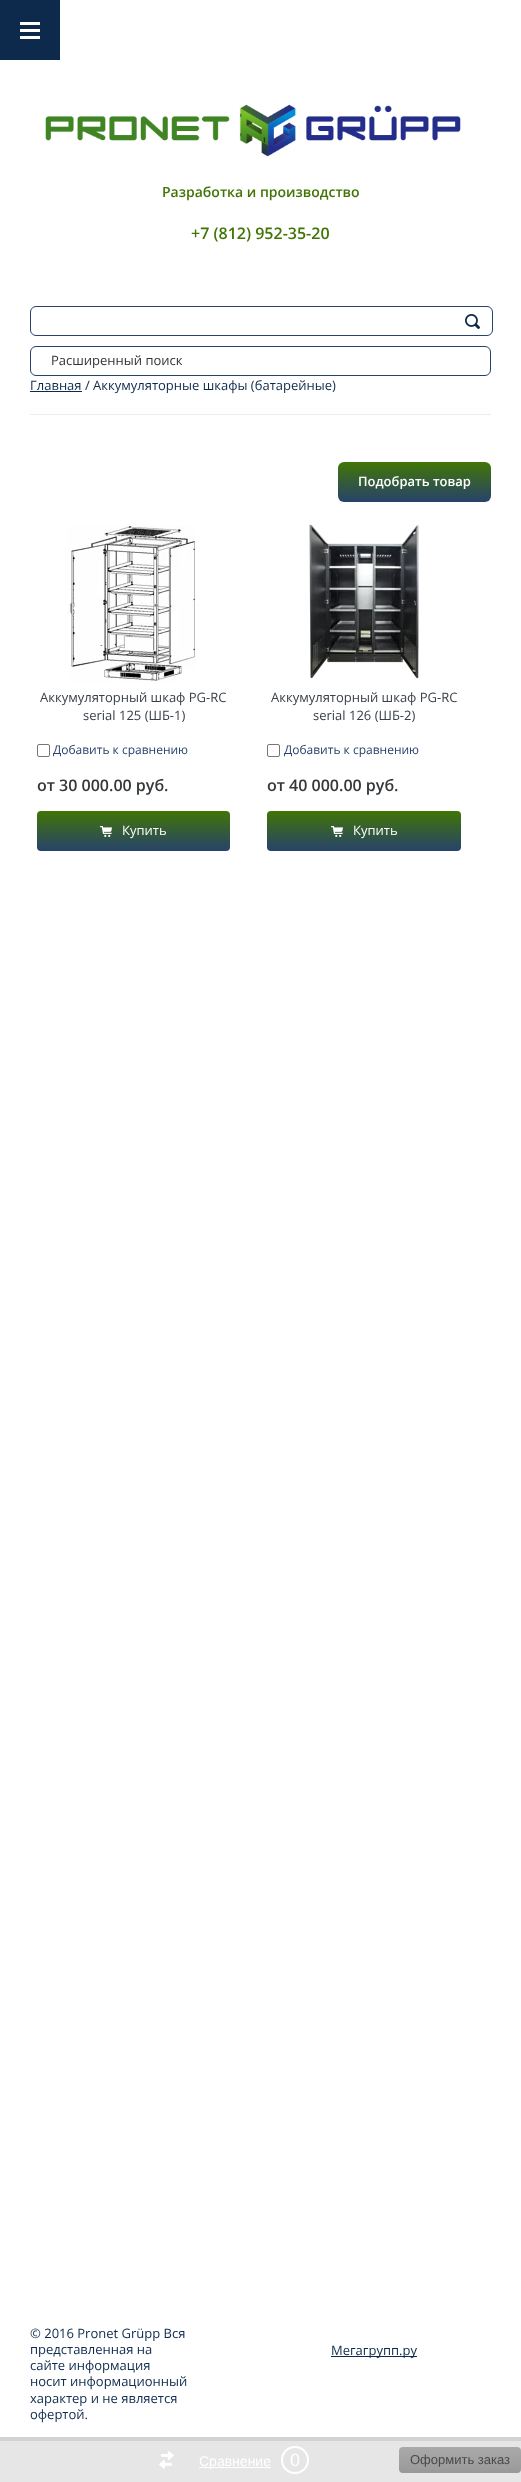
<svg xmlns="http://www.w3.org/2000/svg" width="521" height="2482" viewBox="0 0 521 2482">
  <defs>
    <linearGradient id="g1" gradientUnits="userSpaceOnUse" x1="415" y1="462" x2="415" y2="502"><stop offset="0" stop-color="rgb(65,117,5)"/><stop offset="1" stop-color="rgb(39,66,107)"/></linearGradient>
    <linearGradient id="g2" gradientUnits="userSpaceOnUse" x1="134" y1="811" x2="134" y2="851"><stop offset="0" stop-color="rgb(65,117,5)"/><stop offset="1" stop-color="rgb(39,66,107)"/></linearGradient>
    <linearGradient id="g3" gradientUnits="userSpaceOnUse" x1="364" y1="811" x2="364" y2="851"><stop offset="0" stop-color="rgb(65,117,5)"/><stop offset="1" stop-color="rgb(39,66,107)"/></linearGradient>
    <linearGradient id="g4" gradientUnits="userSpaceOnUse" x1="460" y1="2447" x2="460" y2="2473"><stop offset="0" stop-color="rgb(170,170,170)"/><stop offset="1" stop-color="rgb(153,153,153)"/></linearGradient>
  </defs>
  <rect width="100%" height="100%" fill="rgb(255,255,255)"/>
  <rect x="0" y="0" width="60" height="60" fill="rgb(13,42,77)"/>
  <image x="20" y="22" width="20" height="17" href="pic1.png"/>
  <image x="45" y="104" width="416" height="53" href="pic2.png"/>
  <text x="162" y="197" font-family="Open Sans" font-size="14" font-weight="600" fill="rgb(65,117,5)">Разработка и производство</text>
  <text x="191" y="239" font-family="Open Sans" font-size="16" font-weight="600" fill="rgb(65,117,5)">+7 (812) 952-35-20</text>
  <rect x="30.5" y="306.5" width="462" height="29" rx="5.5" fill="none" stroke="rgb(39,66,107)"/>
  <image x="465" y="314" width="15" height="15" href="pic3.png"/>
  <rect x="30.5" y="346.5" width="460" height="29" rx="5.5" fill="none" stroke="rgb(39,66,107)"/>
  <text x="51" y="365" font-family="Open Sans" font-size="13" fill="rgb(51,51,51)">Расширенный поиск</text>
  <rect x="30" y="414" width="461" height="1" fill="rgb(229,238,242)"/>
  <rect x="30" y="391" width="52" height="1" fill="rgb(13,42,77)"/>
  <text x="30" y="390" font-family="Open Sans" font-size="13" fill="rgb(13,42,77)">Главная / Аккумуляторные шкафы (батарейные)</text>
  <rect x="338" y="462" width="153" height="40" rx="6" fill="url(#g1)"/>
  <text x="358" y="486" font-family="Open Sans" font-size="13" font-weight="600" fill="rgb(255,255,255)">Подобрать товар</text>
  <image x="67" y="526" width="128" height="156" href="pic4.png"/>
  <g font-family="Open Sans" font-size="13" fill="rgb(58,64,73)">
    <text x="40" y="702">Аккумуляторный шкаф PG-RC</text>
    <text x="83" y="720">serial 125 (ШБ-1)</text>
  </g>
  <rect x="37.5" y="744.5" width="12" height="12" rx="1.5" fill="none" stroke="rgb(118,118,118)"/>
  <text x="53" y="754" font-family="Open Sans" font-size="12" fill="rgb(39,66,107)">Добавить к сравнению</text>
  <text x="37" y="791" font-family="Open Sans" font-size="16" font-weight="600" fill="rgb(52,56,58)">от 30 000.00 руб.</text>
  <rect x="37" y="811" width="193" height="40" rx="4" fill="url(#g2)"/>
  <image x="100" y="826" width="12" height="11" href="pic5.png"/>
  <text x="122" y="835" font-family="Open Sans" font-size="13" fill="rgb(255,255,255)">Купить</text>
  <image x="309" y="524" width="110" height="155" href="pic6.png"/>
  <g font-family="Open Sans" font-size="13" fill="rgb(58,64,73)">
    <text x="271" y="702">Аккумуляторный шкаф PG-RC</text>
    <text x="313" y="720">serial 126 (ШБ-2)</text>
  </g>
  <rect x="267.5" y="744.5" width="12" height="12" rx="1.5" fill="none" stroke="rgb(118,118,118)"/>
  <text x="284" y="754" font-family="Open Sans" font-size="12" fill="rgb(39,66,107)">Добавить к сравнению</text>
  <text x="267" y="791" font-family="Open Sans" font-size="16" font-weight="600" fill="rgb(52,56,58)">от 40 000.00 руб.</text>
  <rect x="267" y="811" width="194" height="40" rx="4" fill="url(#g3)"/>
  <image x="331" y="826" width="12" height="11" href="pic5.png"/>
  <text x="353" y="835" font-family="Open Sans" font-size="13" fill="rgb(255,255,255)">Купить</text>
  <rect x="0" y="2441" width="521" height="41" fill="rgb(230,230,230)"/>
  <rect x="0" y="2437" width="521" height="4" fill="rgb(210,210,210)"/>
  <image x="159" y="2451" width="15" height="18" href="pic7.png"/>
  <rect x="199" y="2467" width="72" height="1" fill="rgb(255,255,255)"/>
  <text x="199" y="2466" font-family="Liberation Sans" font-size="14" fill="rgb(255,255,255)">Сравнение</text>
  <circle cx="295" cy="2460" r="13" fill="none" stroke="rgb(255,255,255)" stroke-width="2"/>
  <text x="290" y="2466" font-family="Liberation Sans" font-size="18" fill="rgb(255,255,255)">0</text>
  <rect x="399" y="2447" width="122" height="26" rx="4" fill="url(#g4)"/>
  <text x="410" y="2464" font-family="Liberation Sans" font-size="13" fill="rgb(73,73,73)">Оформить заказ</text>
  <g font-family="Open Sans" font-size="13" fill="rgb(13,42,77)">
    <text>
      <tspan x="30" y="2338">© 2016 Pronet Grüpp Вся</tspan>
      <tspan x="30" y="2354">представленная на</tspan>
      <tspan x="30" y="2370">сайте информация</tspan>
      <tspan x="30" y="2386">носит информационный</tspan>
      <tspan x="30" y="2403">характер и не является</tspan>
      <tspan x="30" y="2419">офертой.</tspan>
    </text>
  </g>
  <rect x="331" y="2356" width="86" height="1" fill="rgb(13,42,77)"/>
  <text x="331" y="2355" font-family="Open Sans" font-size="13" fill="rgb(13,42,77)">Мегагрупп.ру</text>
</svg>
